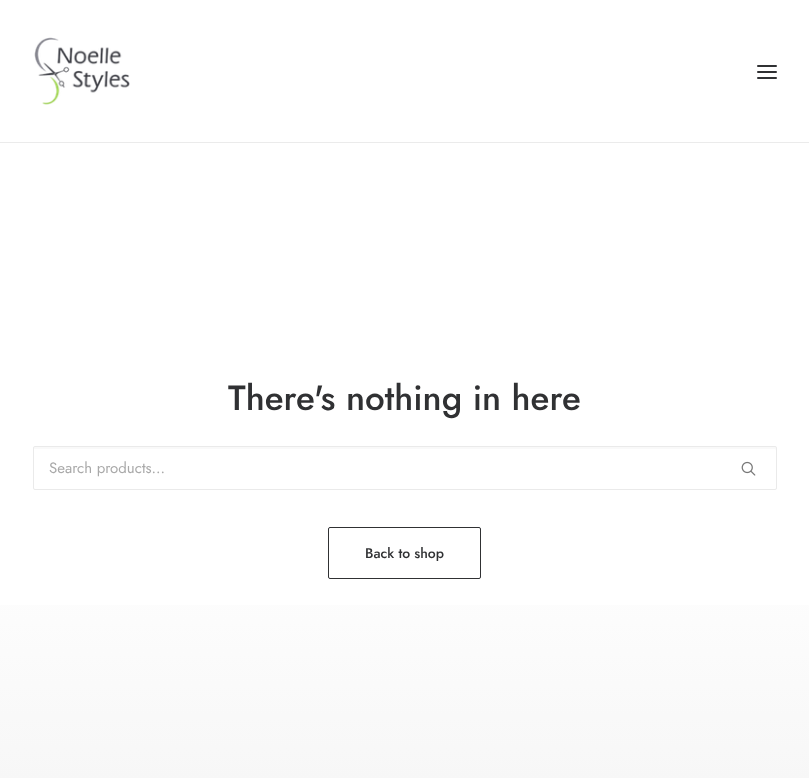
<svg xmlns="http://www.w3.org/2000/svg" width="809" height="778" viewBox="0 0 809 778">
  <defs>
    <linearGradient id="g1" gradientUnits="userSpaceOnUse" x1="405" y1="526" x2="405" y2="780"><stop offset="0" stop-color="rgb(255,255,255)"/><stop offset="1" stop-color="rgb(247,247,247)"/></linearGradient>
  </defs>
  <rect width="100%" height="100%" fill="rgb(255,255,255)"/>
  <rect x="0" y="142" width="809" height="1" fill="rgb(235,235,235)"/>
  <image x="34" y="37" width="96" height="68" href="pic1.png"/>
  <rect x="757" y="71" width="20" height="2" rx="1" fill="rgb(48,49,51)"/>
  <rect x="757" y="65" width="20" height="2" rx="1" fill="rgb(48,49,51)"/>
  <rect x="757" y="77" width="20" height="2" rx="1" fill="rgb(48,49,51)"/>
  <text x="228" y="410" font-family="Jost" font-size="35" font-weight="500" fill="rgb(48,49,51)">There's nothing in here</text>
  <path d="M35 447C34 447 34 448 34 449H775L776 450C776 449 776 447 775 447Z" fill="rgb(249,249,249)"/>
  <rect x="33.5" y="446.5" width="743" height="43" rx="1.5" fill="none" stroke="rgb(234,234,234)"/>
  <text x="49" y="473" font-family="Jost" font-size="15" fill="rgb(169,169,169)">Search products…</text>
  <image x="741" y="461" width="15" height="15" href="pic2.png"/>
  <rect x="328.5" y="527.5" width="152" height="51" rx="1.5" fill="none" stroke="rgb(48,49,51)"/>
  <text x="365" y="558" font-family="Jost" font-size="14" font-weight="500" fill="rgb(48,49,51)">Back to shop</text>
  <rect x="0" y="605" width="809" height="173" fill="url(#g1)"/>
</svg>
